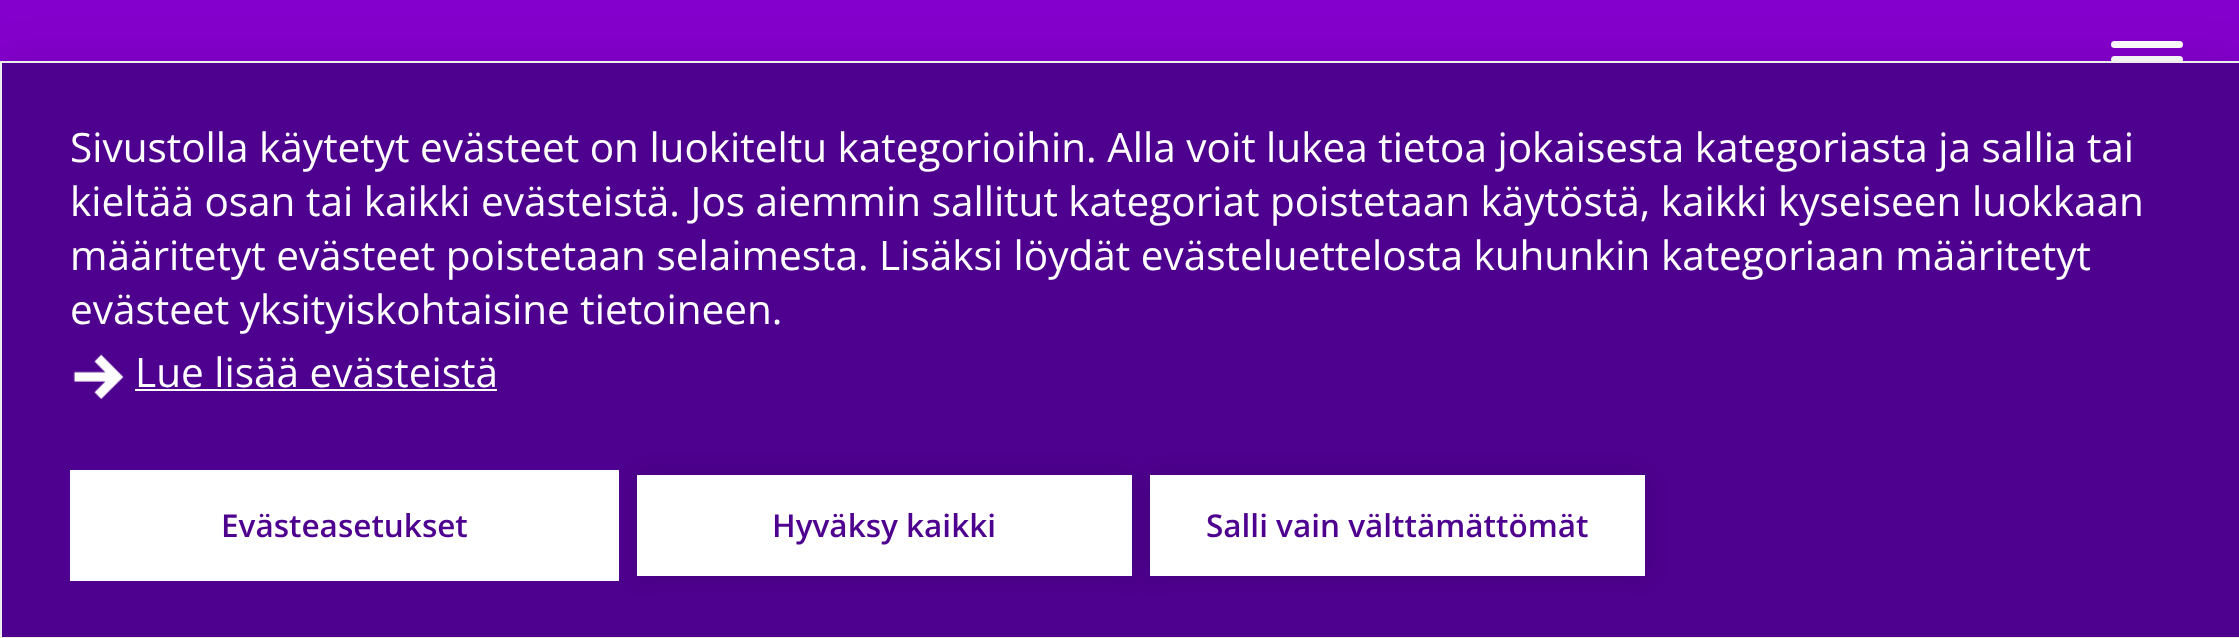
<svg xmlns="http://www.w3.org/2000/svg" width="2239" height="638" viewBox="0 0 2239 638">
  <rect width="100%" height="100%" fill="rgb(132,0,204)"/>
  <rect x="2111" y="56" width="72" height="7" rx="3.5" fill="rgb(255,255,255)"/>
  <rect x="2111" y="41" width="72" height="7" rx="3.5" fill="rgb(255,255,255)"/>
  <rect x="0" y="61" width="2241" height="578" fill="rgba(0,0,0,0.1)" filter="blur(22.5px)"/>
  <rect x="1" y="62" width="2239" height="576" fill="rgb(78,0,142)" stroke="rgb(238,238,238)" stroke-width="2"/>
  <g font-family="Open Sans" font-size="40.5" fill="rgb(255,255,255)">
    <text>
      <tspan x="70" y="162">Sivustolla käytetyt evästeet on luokiteltu kategorioihin. Alla voit lukea tietoa jokaisesta kategoriasta ja sallia tai</tspan>
      <tspan x="70" y="216">kieltää osan tai kaikki evästeistä. Jos aiemmin sallitut kategoriat poistetaan käytöstä, kaikki kyseiseen luokkaan</tspan>
      <tspan x="70" y="270">määritetyt evästeet poistetaan selaimesta. Lisäksi löydät evästeluettelosta kuhunkin kategoriaan määritetyt</tspan>
      <tspan x="70" y="324">evästeet yksityiskohtaisine tietoineen.</tspan>
    </text>
  </g>
  <image x="73" y="354" width="51" height="46" href="pic1.png"/>
  <text x="135" y="387" font-family="Open Sans" font-size="40.5" fill="rgb(255,255,255)">Lue lisää evästeistä</text>
  <rect x="135" y="389" width="362" height="2" fill="rgb(255,255,255)"/>
  <rect x="70" y="470" width="549" height="111" fill="rgb(255,255,255)"/>
  <text x="221" y="537" font-family="Open Sans" font-size="31.5" font-weight="600" fill="rgb(78,0,142)">Evästeasetukset</text>
  <rect x="637" y="475" width="495" height="101" fill="rgba(0,0,0,0.12)" filter="blur(11px)"/>
  <rect x="637" y="475" width="495" height="101" fill="rgb(255,255,255)"/>
  <text x="772" y="537" font-family="Open Sans" font-size="31.5" font-weight="600" fill="rgb(78,0,142)">Hyväksy kaikki</text>
  <rect x="1150" y="475" width="495" height="101" fill="rgba(0,0,0,0.12)" filter="blur(11px)"/>
  <rect x="1150" y="475" width="495" height="101" fill="rgb(255,255,255)"/>
  <text x="1206" y="537" font-family="Open Sans" font-size="31.5" font-weight="600" fill="rgb(78,0,142)">Salli vain välttämättömät</text>
</svg>
